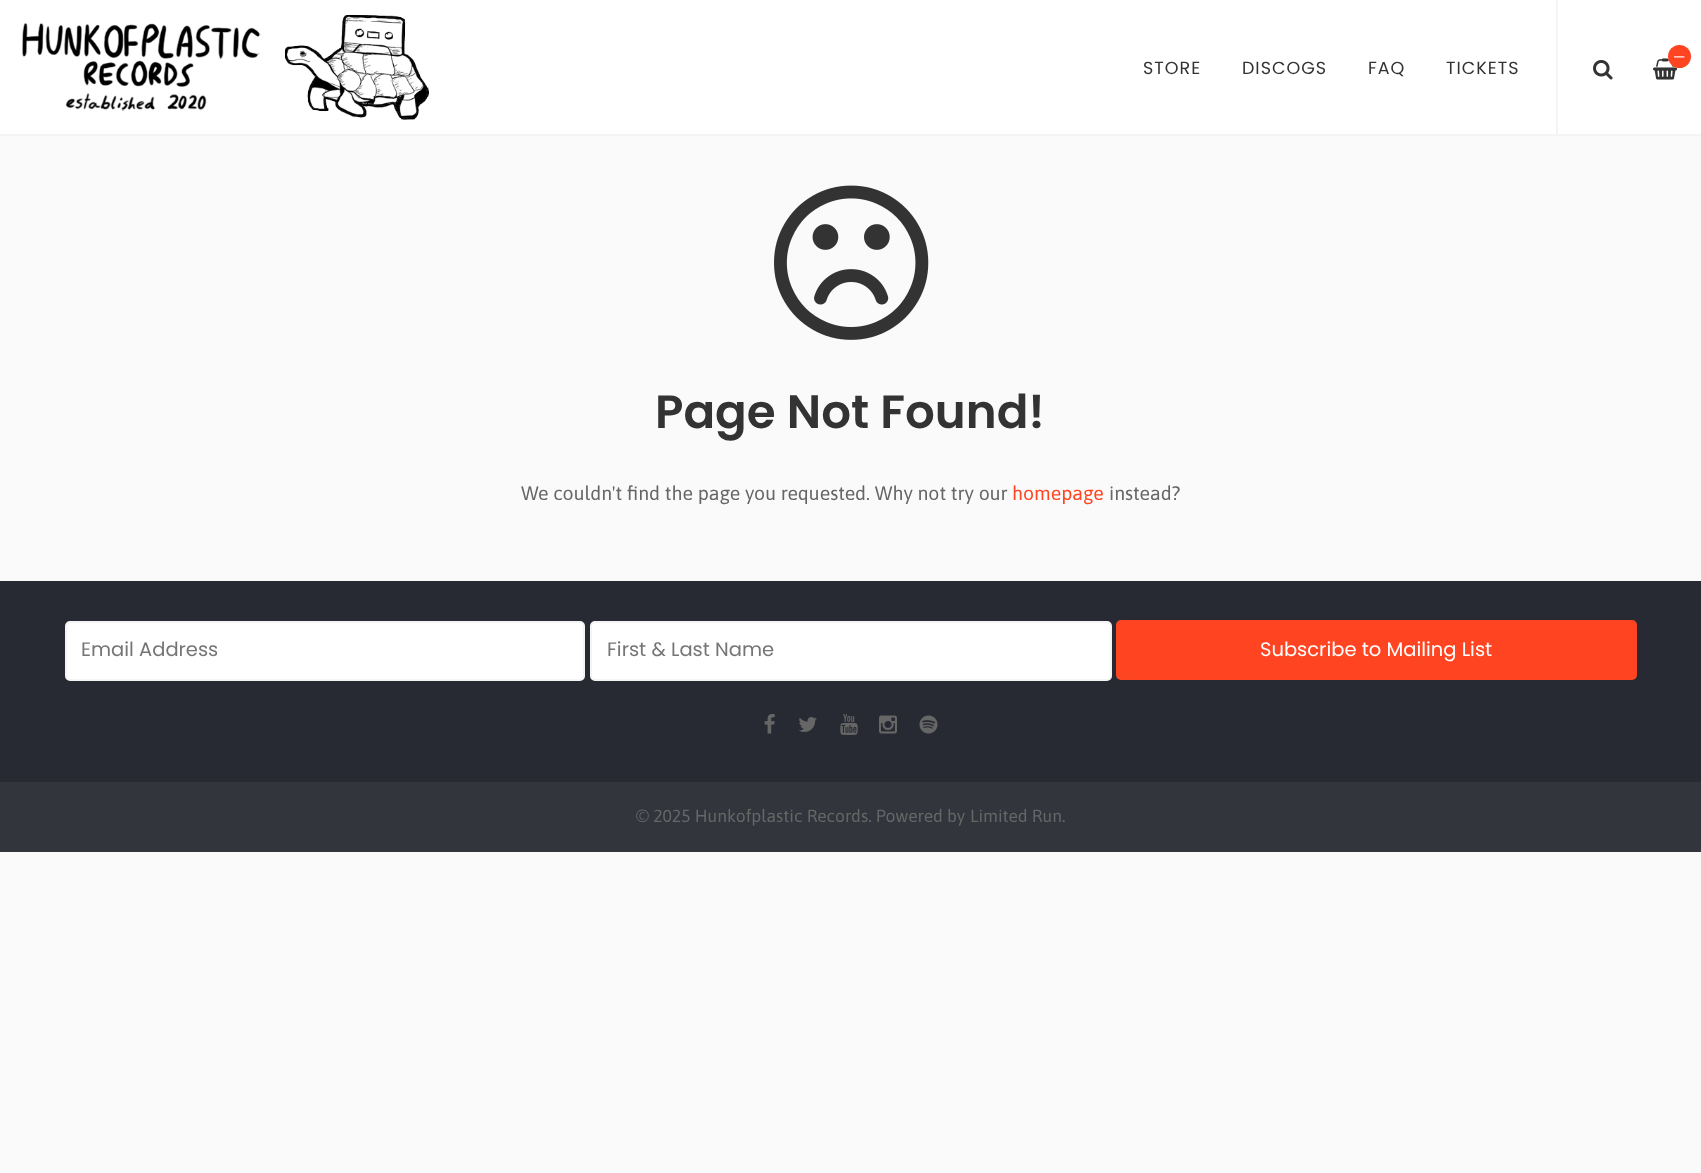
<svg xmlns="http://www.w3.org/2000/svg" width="1701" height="1173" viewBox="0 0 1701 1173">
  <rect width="100%" height="100%" fill="rgb(250,250,250)"/>
  <rect x="0" y="0" width="1701" height="134" fill="rgb(255,255,255)"/>
  <rect x="0" y="134" width="1701" height="2" fill="rgb(244,244,244)"/>
  <image x="22" y="15" width="407" height="105" href="pic1.png"/>
  <rect x="1556" y="0" width="2" height="135" fill="rgb(244,244,244)"/>
  <image x="1593" y="60" width="20" height="20" href="pic2.png"/>
  <image x="1653" y="58" width="24" height="22" href="pic3.png"/>
  <circle cx="1679.5" cy="56.5" r="11.5" fill="rgb(255,68,34)"/>
  <text x="1673" y="62" font-family="Poppins" font-size="14" letter-spacing="1" fill="rgb(255,255,255)">—</text>
  <g font-family="Poppins" font-size="17.5" letter-spacing="1" fill="rgb(51,51,51)">
    <text x="1143" y="74">STORE</text>
    <text x="1242" y="74">DISCOGS</text>
    <text x="1368" y="74">FAQ</text>
    <text x="1446" y="74">TICKETS</text>
  </g>
  <image x="774" y="185" width="155" height="155" href="pic4.png"/>
  <text x="655" y="428" font-family="Poppins" font-size="46.75" font-weight="600" fill="rgb(51,51,51)">Page Not Found!</text>
  <text x="521" y="500" font-family="Asap" font-size="19.5" fill="rgb(102,102,102)">We couldn't find the page you requested. Why not try our</text>
  <text x="1012" y="500" font-family="Asap" font-size="19.5" fill="rgb(255,68,34)">homepage</text>
  <text x="1109" y="500" font-family="Asap" font-size="19.5" fill="rgb(102,102,102)">instead?</text>
  <rect x="0" y="581" width="1701" height="201" fill="rgb(39,42,50)"/>
  <rect x="66" y="622" width="518" height="58" rx="4" fill="rgb(255,255,255)" stroke="rgb(244,244,244)" stroke-width="2"/>
  <text x="81" y="656" font-family="Poppins" font-size="19.5" fill="rgb(117,117,117)">Email Address</text>
  <rect x="591" y="622" width="520" height="58" rx="4" fill="rgb(255,255,255)" stroke="rgb(244,244,244)" stroke-width="2"/>
  <text x="607" y="656" font-family="Poppins" font-size="19.5" fill="rgb(117,117,117)">First &amp; Last Name</text>
  <rect x="1116" y="620" width="521" height="60" rx="5" fill="rgb(255,68,34)"/>
  <text x="1260" y="656" font-family="Poppins" font-size="19.5" fill="rgb(255,255,255)">Subscribe to Mailing List</text>
  <image x="764" y="714" width="11" height="20" href="pic5.png"/>
  <image x="799" y="717" width="18" height="15" href="pic6.png"/>
  <image x="840" y="714" width="18" height="21" href="pic7.png"/>
  <image x="879" y="715" width="18" height="19" href="pic8.png"/>
  <image x="919" y="715" width="19" height="19" href="pic9.png"/>
  <rect x="0" y="782" width="1701" height="70" fill="rgb(50,53,60)"/>
  <g font-family="Asap" font-size="17.5" fill="rgb(102,102,102)">
    <text x="636" y="822">© 2025 Hunkofplastic Records. Powered by</text>
    <text x="970" y="822">Limited Run.</text>
  </g>
</svg>
